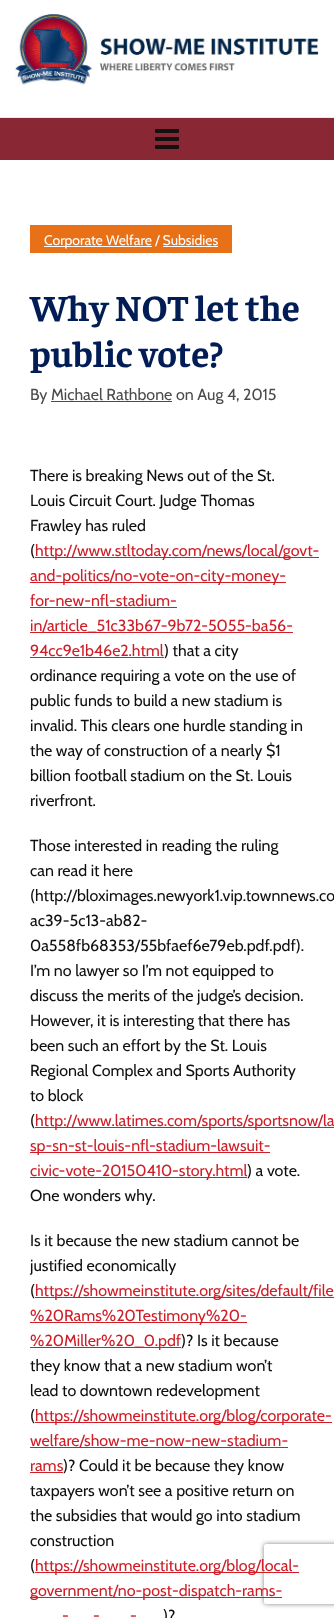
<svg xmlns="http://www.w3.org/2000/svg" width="334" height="1618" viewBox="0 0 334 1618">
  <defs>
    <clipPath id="clip1"><path d="M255 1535H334V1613H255ZM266 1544H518C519 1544 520 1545 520 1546V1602C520 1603 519 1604 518 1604H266C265 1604 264 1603 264 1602V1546C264 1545 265 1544 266 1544Z" clip-rule="evenodd"/></clipPath>
  </defs>
  <rect width="100%" height="100%" fill="rgb(255,255,255)"/>
  <image x="15" y="14" width="304" height="72" href="pic1.png"/>
  <rect x="0" y="117" width="334" height="1" fill="rgb(235,235,235)"/>
  <rect x="0" y="118" width="334" height="42" fill="rgb(138,39,53)"/>
  <image x="155" y="129" width="24" height="20" href="pic2.png"/>
  <rect x="30" y="225" width="202" height="28" fill="rgb(232,113,23)"/>
  <rect x="44" y="246" width="108" height="1" fill="rgb(255,255,255)"/>
  <text x="44" y="245" font-family="Cabin" font-size="14" fill="rgb(255,255,255)">Corporate Welfare / Subsidies</text>
  <rect x="163" y="246" width="55" height="1" fill="rgb(255,255,255)"/>
  <g font-family="Faustina" font-size="37" font-weight="bold" fill="rgb(2,29,85)">
    <text>
      <tspan x="30" y="321">Why NOT let the</tspan>
      <tspan x="30" y="367">public vote?</tspan>
    </text>
  </g>
  <text x="30" y="400" font-family="Cabin" font-size="16" fill="rgb(75,75,75)">By Michael Rathbone</text>
  <rect x="51" y="401" width="121" height="1" fill="rgb(75,75,75)"/>
  <text x="176" y="400" font-family="Cabin" font-size="16" fill="rgb(75,75,75)">on Aug 4, 2015</text>
  <g font-family="Cabin" font-size="16" fill="rgb(15,15,15)">
    <text>
      <tspan x="30" y="481">There is breaking News out of the St.</tspan>
      <tspan x="30" y="506">Louis Circuit Court. Judge Thomas</tspan>
      <tspan x="30" y="531">Frawley has ruled</tspan>
      <tspan x="30" y="556">(</tspan>
    </text>
  </g>
  <rect x="35" y="557" width="284" height="1" fill="rgb(206,30,40)"/>
  <text x="35" y="556" font-family="Cabin" font-size="16" fill="rgb(206,30,40)">http://www.stltoday.com/news/local/govt-</text>
  <rect x="30" y="582" width="256" height="1" fill="rgb(206,30,40)"/>
  <g font-family="Cabin" font-size="16" fill="rgb(206,30,40)">
    <text>
      <tspan x="30" y="581">and-politics/no-vote-on-city-money-</tspan>
      <tspan x="30" y="606">for-new-nfl-stadium-</tspan>
    </text>
  </g>
  <rect x="30" y="607" width="147" height="1" fill="rgb(206,30,40)"/>
  <rect x="30" y="632" width="263" height="1" fill="rgb(206,30,40)"/>
  <g font-family="Cabin" font-size="16" fill="rgb(206,30,40)">
    <text>
      <tspan x="30" y="631">in/article_51c33b67-9b72-5055-ba56-</tspan>
      <tspan x="30" y="656">94cc9e1b46e2.html</tspan>
    </text>
  </g>
  <rect x="30" y="657" width="134" height="1" fill="rgb(206,30,40)"/>
  <g font-family="Cabin" font-size="16" fill="rgb(15,15,15)">
    <text x="164" y="656">) that a city</text>
    <text>
      <tspan x="30" y="681">ordinance requiring a vote on the use of</tspan>
      <tspan x="30" y="706">public funds to build a new stadium is</tspan>
      <tspan x="30" y="731">invalid. This clears one hurdle standing in</tspan>
      <tspan x="30" y="756">the way of construction of a nearly $1</tspan>
      <tspan x="30" y="781">billion football stadium on the St. Louis</tspan>
      <tspan x="30" y="806">riverfront.</tspan>
    </text>
    <text>
      <tspan x="30" y="851">Those interested in reading the ruling</tspan>
      <tspan x="30" y="876">can read it here</tspan>
      <tspan x="30" y="901">(http://bloximages.newyork1.vip.townnews.co</tspan>
      <tspan x="30" y="926">ac39-5c13-ab82-</tspan>
      <tspan x="30" y="951">0a558fb68353/55bfaef6e79eb.pdf.pdf).</tspan>
      <tspan x="30" y="976">I’m no lawyer so I’m not equipped to</tspan>
      <tspan x="30" y="1001">discuss the merits of the judge’s decision.</tspan>
      <tspan x="30" y="1026">However, it is interesting that there has</tspan>
      <tspan x="30" y="1051">been such an effort by the St. Louis</tspan>
      <tspan x="30" y="1076">Regional Complex and Sports Authority</tspan>
      <tspan x="30" y="1101">to block</tspan>
      <tspan x="30" y="1126">(</tspan>
    </text>
  </g>
  <rect x="35" y="1127" width="299" height="1" fill="rgb(206,30,40)"/>
  <text x="35" y="1126" font-family="Cabin" font-size="16" fill="rgb(206,30,40)">http://www.latimes.com/sports/sportsnow/la</text>
  <rect x="30" y="1152" width="240" height="1" fill="rgb(206,30,40)"/>
  <text x="30" y="1151" font-family="Cabin" font-size="16" fill="rgb(206,30,40)">sp-sn-st-louis-nfl-stadium-lawsuit-</text>
  <rect x="30" y="1177" width="217" height="1" fill="rgb(206,30,40)"/>
  <text x="30" y="1176" font-family="Cabin" font-size="16" fill="rgb(206,30,40)">civic-vote-20150410-story.html</text>
  <g font-family="Cabin" font-size="16" fill="rgb(15,15,15)">
    <text x="247" y="1176">) a vote.</text>
    <text x="30" y="1201">One wonders why.</text>
    <text>
      <tspan x="30" y="1246">Is it because the new stadium cannot be</tspan>
      <tspan x="30" y="1271">justified economically</tspan>
      <tspan x="30" y="1296">(</tspan>
    </text>
  </g>
  <rect x="35" y="1297" width="299" height="1" fill="rgb(206,30,40)"/>
  <text x="35" y="1296" font-family="Cabin" font-size="16" fill="rgb(206,30,40)">https://showmeinstitute.org/sites/default/file</text>
  <rect x="30" y="1322" width="217" height="1" fill="rgb(206,30,40)"/>
  <text x="30" y="1321" font-family="Cabin" font-size="16" fill="rgb(206,30,40)">%20Rams%20Testimony%20-</text>
  <rect x="30" y="1347" width="151" height="1" fill="rgb(206,30,40)"/>
  <text x="30" y="1346" font-family="Cabin" font-size="16" fill="rgb(206,30,40)">%20Miller%20_0.pdf</text>
  <g font-family="Cabin" font-size="16" fill="rgb(15,15,15)">
    <text x="181" y="1346">)? Is it because</text>
    <text>
      <tspan x="30" y="1371">they know that a new stadium won’t</tspan>
      <tspan x="30" y="1396">lead to downtown redevelopment</tspan>
      <tspan x="30" y="1421">(</tspan>
    </text>
  </g>
  <rect x="35" y="1422" width="297" height="1" fill="rgb(206,30,40)"/>
  <text x="35" y="1421" font-family="Cabin" font-size="16" fill="rgb(206,30,40)">https://showmeinstitute.org/blog/corporate-</text>
  <rect x="30" y="1447" width="258" height="1" fill="rgb(206,30,40)"/>
  <g font-family="Cabin" font-size="16" fill="rgb(206,30,40)">
    <text>
      <tspan x="30" y="1446">welfare/show-me-now-new-stadium-</tspan>
      <tspan x="30" y="1471">rams</tspan>
    </text>
  </g>
  <rect x="30" y="1472" width="33" height="1" fill="rgb(206,30,40)"/>
  <g font-family="Cabin" font-size="16" fill="rgb(15,15,15)">
    <text x="63" y="1471">)? Could it be because they know</text>
    <text>
      <tspan x="30" y="1496">taxpayers won’t see a positive return on</tspan>
      <tspan x="30" y="1521">the subsidies that would go into stadium</tspan>
      <tspan x="30" y="1546">construction</tspan>
      <tspan x="30" y="1571">(</tspan>
    </text>
  </g>
  <g clip-path="url(#clip1)">
    <rect x="264" y="1544" width="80" height="60" rx="2" fill="rgb(128,128,128)" filter="blur(2.5px)"/>
  </g>
  <rect x="35" y="1572" width="264" height="1" fill="rgb(206,30,40)"/>
  <text x="35" y="1571" font-family="Cabin" font-size="16" fill="rgb(206,30,40)">https://showmeinstitute.org/blog/local-</text>
  <rect x="30" y="1597" width="252" height="1" fill="rgb(206,30,40)"/>
  <g font-family="Cabin" font-size="16" fill="rgb(206,30,40)">
    <text x="30" y="1596">government/no-post-dispatch-rams-</text>
    <text x="62" y="1621">-</text>
    <text x="93" y="1621">-</text>
    <text x="130" y="1621">-</text>
  </g>
  <text x="163" y="1621" font-family="Cabin" font-size="16" fill="rgb(15,15,15)">)?</text>
</svg>
